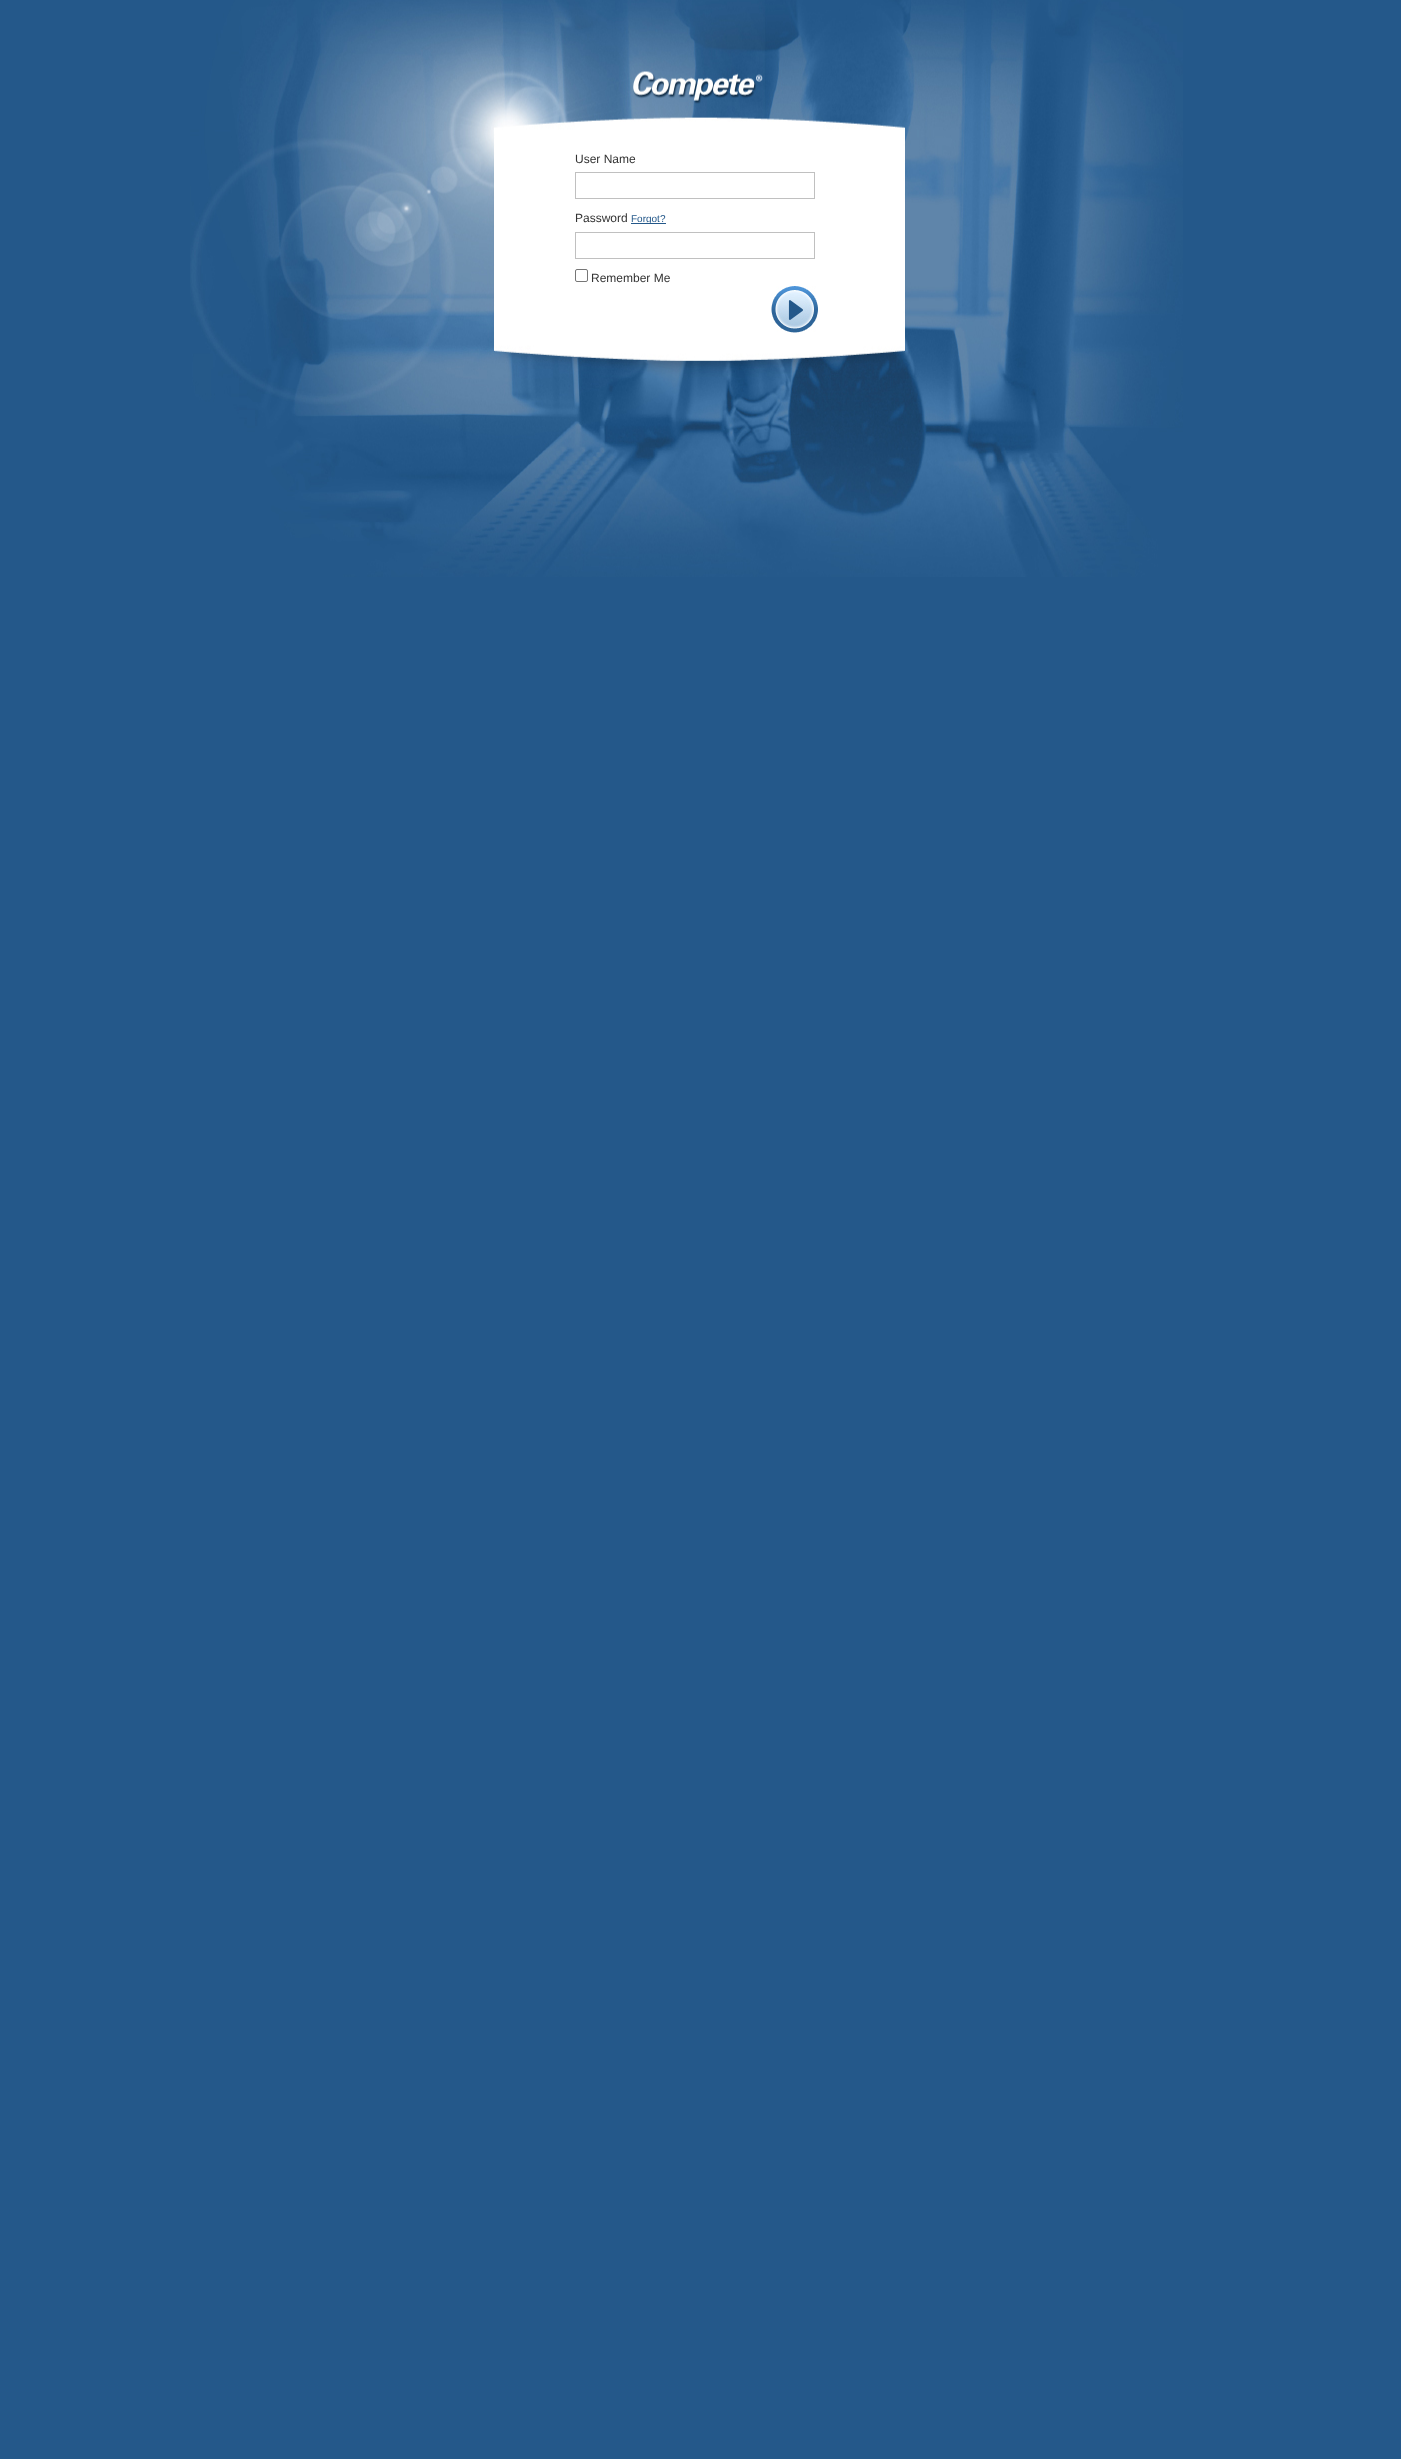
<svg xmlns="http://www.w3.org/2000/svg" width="1401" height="2459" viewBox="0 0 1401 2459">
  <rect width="100%" height="100%" fill="rgb(36,88,138)"/>
  <image x="190" y="503" width="993" height="74" href="pic1.png"/>
  <image x="190" y="0" width="993" height="503" href="pic2.png"/>
  <text x="575" y="163" font-family="Liberation Sans" font-size="12" fill="rgb(51,51,51)">User Name</text>
  <rect x="575.5" y="172.5" width="239" height="26" fill="none" stroke="rgb(192,192,192)"/>
  <text x="575" y="222" font-family="Liberation Sans" font-size="12" fill="rgb(51,51,51)">Password</text>
  <rect x="631" y="223" width="35" height="1" fill="rgb(36,88,138)"/>
  <text x="631" y="222" font-family="Liberation Sans" font-size="10" fill="rgb(36,88,138)">Forgot?</text>
  <rect x="575.5" y="232.5" width="239" height="26" fill="none" stroke="rgb(192,192,192)"/>
  <rect x="575.5" y="269.5" width="12" height="12" rx="1.5" fill="none" stroke="rgb(118,118,118)"/>
  <text x="591" y="282" font-family="Liberation Sans" font-size="12" fill="rgb(51,51,51)">Remember Me</text>
  <image x="771" y="286" width="47" height="47" href="pic3.png"/>
</svg>
